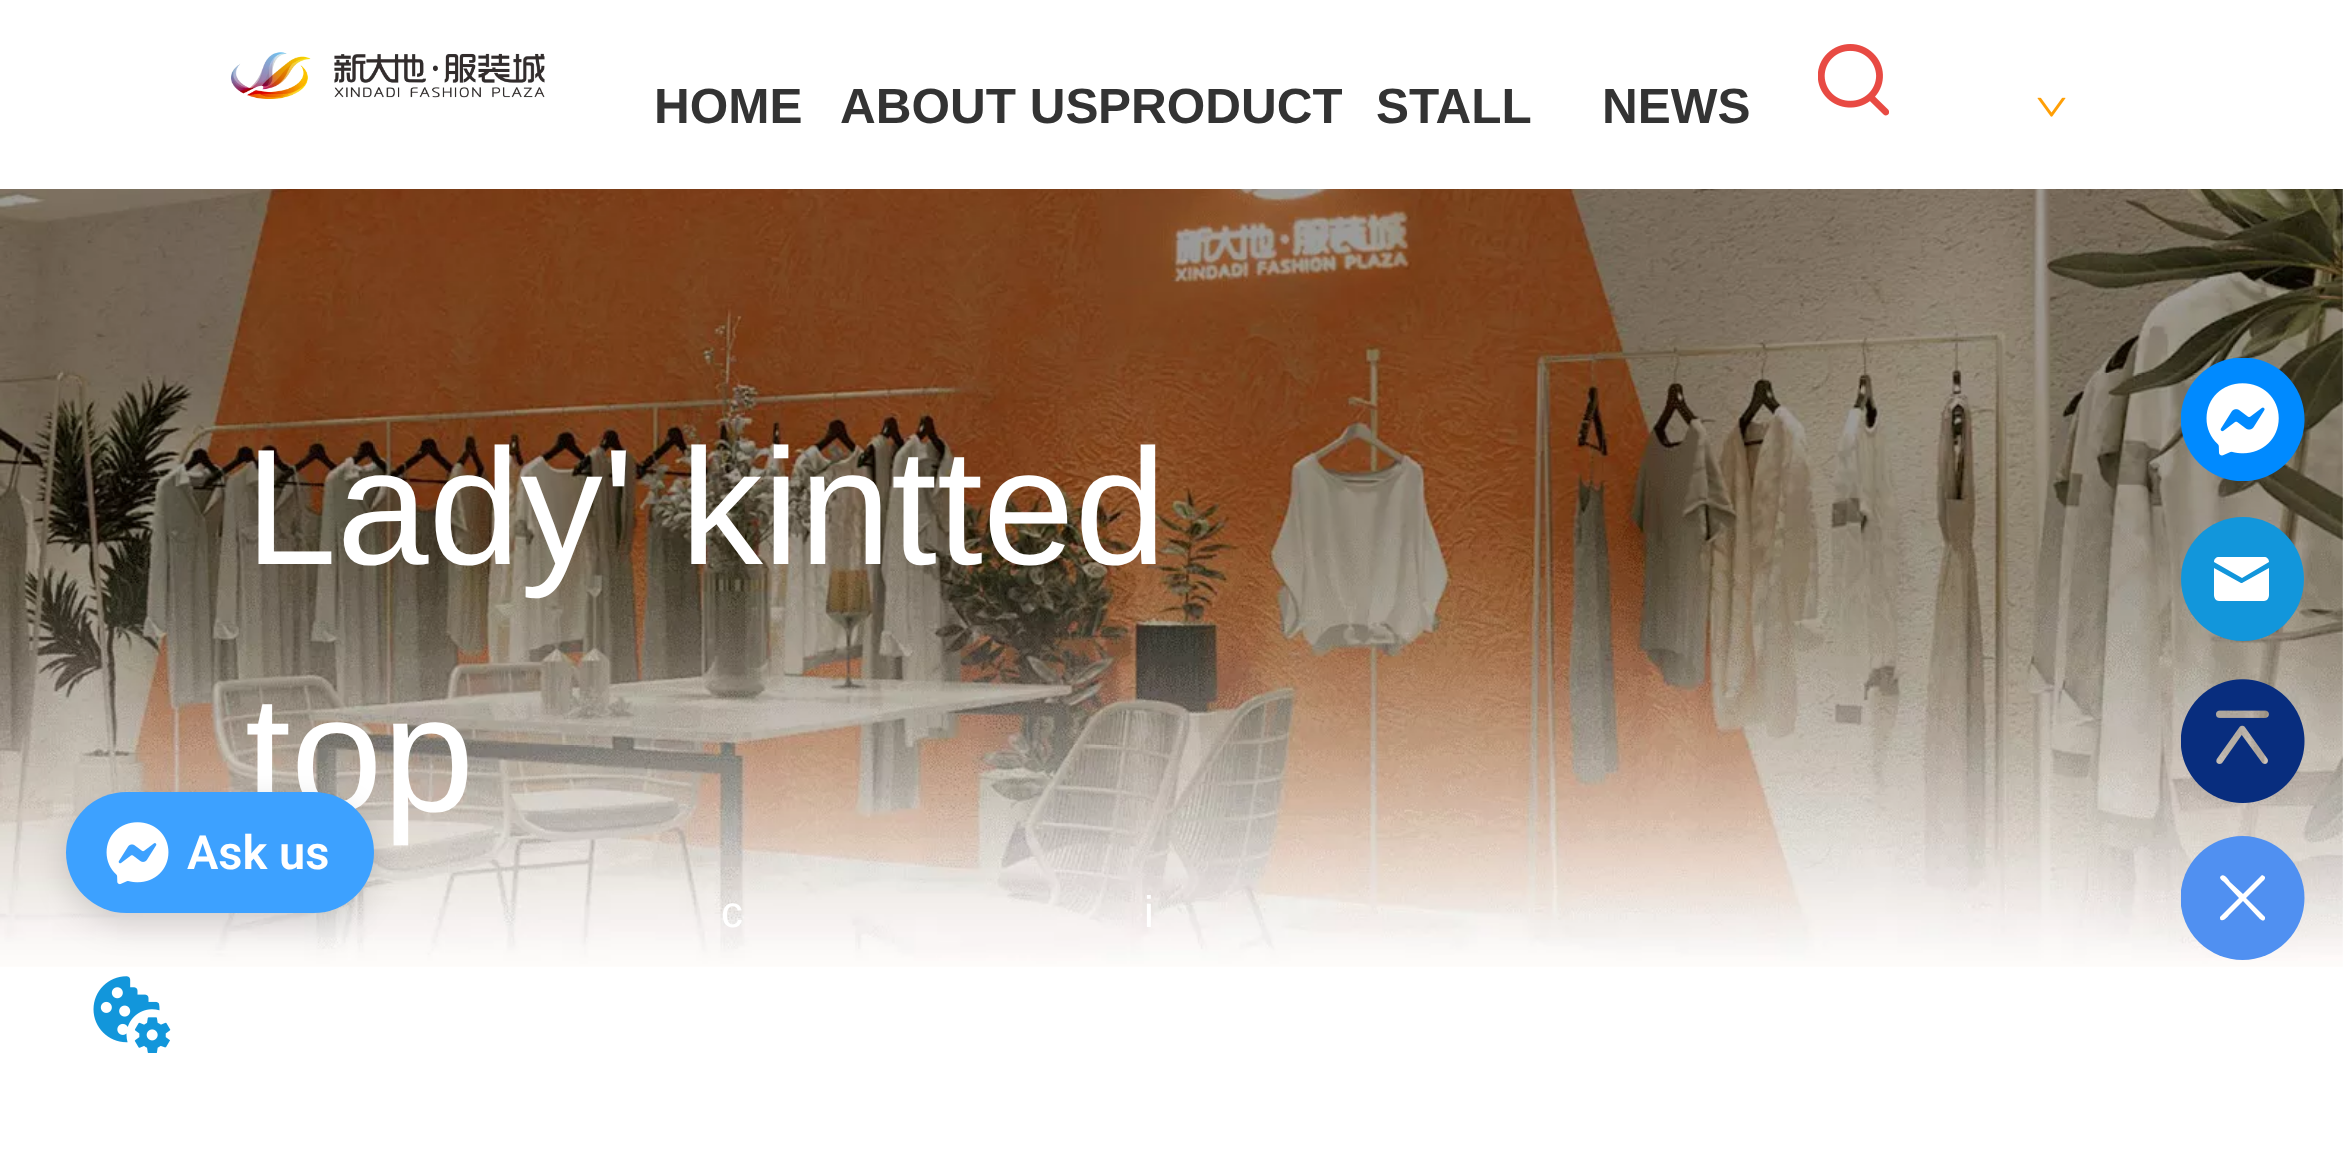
<svg xmlns="http://www.w3.org/2000/svg" width="2343" height="1169" viewBox="0 0 2343 1169">
  <defs>
    <clipPath id="clip1"><rect x="1097" y="25" width="245" height="165"/></clipPath>
    <clipPath id="clip2"><rect x="2181" y="836" width="124" height="124"/></clipPath>
  </defs>
  <rect width="100%" height="100%" fill="rgb(255,255,255)"/>
  <rect x="0" y="-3" width="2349" height="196" fill="rgba(0,0,0,0.13)" filter="blur(15px)"/>
  <rect x="0" y="0" width="2343" height="190" fill="rgb(255,255,255)"/>
  <image x="231" y="52" width="314" height="47" href="pic1.png"/>
  <image x="1818" y="44" width="71" height="72" href="pic2.png"/>
  <g font-family="Liberation Sans" font-size="49.5" font-weight="bold" fill="rgb(51,51,51)">
    <text x="654" y="123">HOME</text>
    <text x="840" y="123">ABOUT US</text>
  </g>
  <g clip-path="url(#clip1)">
    <text x="1098" y="123" font-family="Liberation Sans" font-size="49.5" font-weight="bold" fill="rgb(51,51,51)">PRODUCT</text>
  </g>
  <g font-family="Liberation Sans" font-size="49.5" font-weight="bold" fill="rgb(51,51,51)">
    <text x="1376" y="123">STALL</text>
    <text x="1602" y="123">NEWS</text>
  </g>
  <image x="2037" y="97" width="29" height="20" href="pic3.png"/>
  <image x="0" y="189" width="2343" height="778" href="pic4.png"/>
  <g font-family="Liberation Sans" font-size="165" fill="rgb(255,255,255)">
    <text>
      <tspan x="245" y="564">Lady' kintted</tspan>
      <tspan x="245" y="811">top</tspan>
    </text>
  </g>
  <g font-family="Liberation Sans" font-size="44" fill="rgb(255,255,255)">
    <text x="721" y="927">c</text>
    <text x="1144" y="927">i</text>
  </g>
  <image x="2181" y="358" width="124" height="123" href="pic5.png"/>
  <path d="M2181 579C2181 613 2208 641 2243 641C2277 641 2304 613 2304 579C2304 545 2277 517 2243 517C2208 517 2181 545 2181 579Z" fill="rgb(18,150,219)"/>
  <path d="M2219 557H2264C2267 557 2269 559 2269 562L2242 578L2214 562C2214 559 2216 557 2219 557ZM2214 568V595C2214 598 2216 601 2219 601H2264C2267 601 2269 598 2269 595V568L2242 583H2241Z" fill="rgb(255,255,255)"/>
  <image x="2181" y="679" width="124" height="124" href="pic6.png"/>
  <g clip-path="url(#clip2)">
    <circle cx="2242.5" cy="898" r="62" fill="rgb(80,144,241)"/>
  </g>
  <path d="M2246 898L2262 882C2263 881 2267 878 2264 876L2262 875L2243 894L2230 882C2229 880 2224 873 2221 876C2218 878 2223 881 2224 882L2239 898L2220 917C2220 918 2220 920 2221 920C2224 922 2229 915 2230 914L2243 901L2258 917C2259 918 2263 923 2265 919V917Z" fill="rgb(255,255,255)"/>
  <rect x="66" y="803" width="305" height="121" rx="60.5" fill="rgba(0,0,0,0.15)" filter="blur(16.5px)"/>
  <rect x="66" y="792" width="308" height="121" rx="60.5" fill="rgb(61,161,255)"/>
  <image x="106" y="822" width="63" height="63" href="pic7.png"/>
  <text x="187" y="869" font-family="Roboto" font-size="47" font-weight="600" fill="rgb(255,255,255)">Ask us</text>
  <image x="93" y="976" width="78" height="77" href="pic8.png"/>
</svg>
